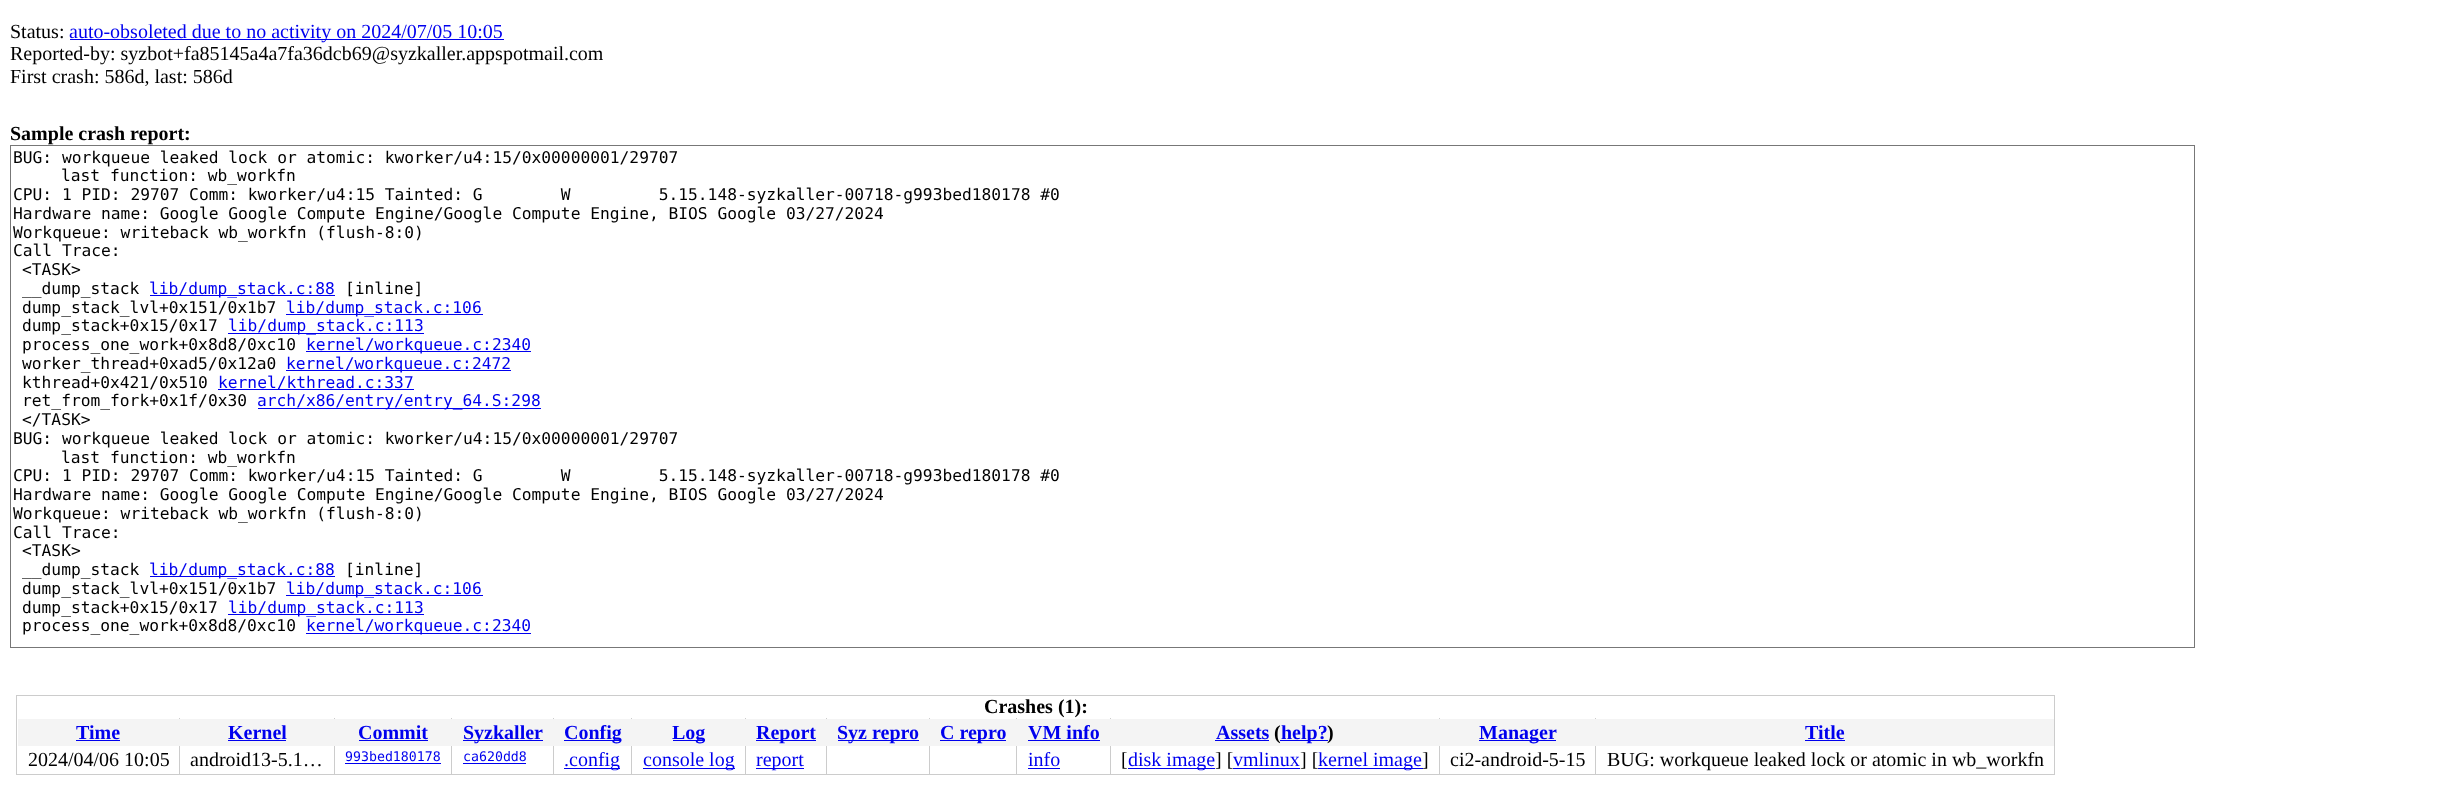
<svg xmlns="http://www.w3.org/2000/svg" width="2445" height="799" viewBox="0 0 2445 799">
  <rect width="100%" height="100%" fill="rgb(255,255,255)"/>
  <text x="10" y="38" font-family="Liberation Serif" font-size="20" fill="rgb(0,0,0)">Status:</text>
  <rect x="70" y="39" width="434" height="1" fill="rgb(0,0,238)"/>
  <text x="69" y="38" font-family="Liberation Serif" font-size="20" fill="rgb(0,0,238)">auto-obsoleted due to no activity on 2024/07/05 10:05</text>
  <g font-family="Liberation Serif" font-size="20" fill="rgb(0,0,0)">
    <text>
      <tspan x="10" y="60">Reported-by: syzbot+fa85145a4a7fa36dcb69@syzkaller.appspotmail.com</tspan>
      <tspan x="10" y="83">First crash: 586d, last: 586d</tspan>
    </text>
  </g>
  <text x="10" y="140" font-family="Liberation Serif" font-size="20" font-weight="bold" fill="rgb(0,0,0)">Sample crash report:</text>
  <rect x="10.5" y="145.5" width="2184" height="502" fill="none" stroke="rgb(119,119,119)"/>
  <g font-family="DejaVu Sans Mono" font-size="16.25" fill="rgb(0,0,0)">
    <text x="13" y="163">BUG: workqueue leaked lock or atomic: kworker/u4:15/0x00000001/29707</text>
    <text x="61" y="181">last function: wb_workfn</text>
    <text xml:space="preserve"><tspan x="13" y="200">CPU: 1 PID: 29707 Comm: kworker/u4:15 Tainted: G        W         5.15.148-syzkaller-00718-g993bed180178 #0</tspan><tspan x="13" y="219">Hardware name: Google Google Compute Engine/Google Compute Engine, BIOS Google 03/27/2024</tspan><tspan x="13" y="238">Workqueue: writeback wb_workfn (flush-8:0)</tspan><tspan x="13" y="256">Call Trace:</tspan></text>
    <text>
      <tspan x="22" y="275">&lt;TASK&gt;</tspan>
      <tspan x="22" y="294">__dump_stack</tspan>
    </text>
  </g>
  <rect x="150" y="295" width="185" height="1" fill="rgb(0,0,238)"/>
  <text x="149" y="294" font-family="DejaVu Sans Mono" font-size="16.25" fill="rgb(0,0,238)">lib/dump_stack.c:88</text>
  <g font-family="DejaVu Sans Mono" font-size="16.25" fill="rgb(0,0,0)">
    <text x="345" y="294">[inline]</text>
    <text x="22" y="313">dump_stack_lvl+0x151/0x1b7</text>
  </g>
  <rect x="286" y="314" width="197" height="1" fill="rgb(0,0,238)"/>
  <text x="286" y="313" font-family="DejaVu Sans Mono" font-size="16.25" fill="rgb(0,0,238)">lib/dump_stack.c:106</text>
  <text x="22" y="331" font-family="DejaVu Sans Mono" font-size="16.25" fill="rgb(0,0,0)">dump_stack+0x15/0x17</text>
  <rect x="228" y="333" width="196" height="1" fill="rgb(0,0,238)"/>
  <text x="228" y="331" font-family="DejaVu Sans Mono" font-size="16.25" fill="rgb(0,0,238)">lib/dump_stack.c:113</text>
  <text x="22" y="350" font-family="DejaVu Sans Mono" font-size="16.25" fill="rgb(0,0,0)">process_one_work+0x8d8/0xc10</text>
  <rect x="306" y="351" width="225" height="1" fill="rgb(0,0,238)"/>
  <text x="306" y="350" font-family="DejaVu Sans Mono" font-size="16.25" fill="rgb(0,0,238)">kernel/workqueue.c:2340</text>
  <text x="22" y="369" font-family="DejaVu Sans Mono" font-size="16.25" fill="rgb(0,0,0)">worker_thread+0xad5/0x12a0</text>
  <rect x="286" y="370" width="225" height="1" fill="rgb(0,0,238)"/>
  <text x="286" y="369" font-family="DejaVu Sans Mono" font-size="16.25" fill="rgb(0,0,238)">kernel/workqueue.c:2472</text>
  <text x="22" y="388" font-family="DejaVu Sans Mono" font-size="16.25" fill="rgb(0,0,0)">kthread+0x421/0x510</text>
  <rect x="218" y="389" width="196" height="1" fill="rgb(0,0,238)"/>
  <text x="218" y="388" font-family="DejaVu Sans Mono" font-size="16.25" fill="rgb(0,0,238)">kernel/kthread.c:337</text>
  <text x="22" y="406" font-family="DejaVu Sans Mono" font-size="16.25" fill="rgb(0,0,0)">ret_from_fork+0x1f/0x30</text>
  <rect x="258" y="408" width="283" height="1" fill="rgb(0,0,238)"/>
  <text x="257" y="406" font-family="DejaVu Sans Mono" font-size="16.25" fill="rgb(0,0,238)">arch/x86/entry/entry_64.S:298</text>
  <g font-family="DejaVu Sans Mono" font-size="16.25" fill="rgb(0,0,0)">
    <text x="22" y="425">&lt;/TASK&gt;</text>
    <text x="13" y="444">BUG: workqueue leaked lock or atomic: kworker/u4:15/0x00000001/29707</text>
    <text x="61" y="463">last function: wb_workfn</text>
    <text xml:space="preserve"><tspan x="13" y="481">CPU: 1 PID: 29707 Comm: kworker/u4:15 Tainted: G        W         5.15.148-syzkaller-00718-g993bed180178 #0</tspan><tspan x="13" y="500">Hardware name: Google Google Compute Engine/Google Compute Engine, BIOS Google 03/27/2024</tspan><tspan x="13" y="519">Workqueue: writeback wb_workfn (flush-8:0)</tspan><tspan x="13" y="538">Call Trace:</tspan></text>
    <text>
      <tspan x="22" y="556">&lt;TASK&gt;</tspan>
      <tspan x="22" y="575">__dump_stack</tspan>
    </text>
  </g>
  <rect x="150" y="576" width="185" height="1" fill="rgb(0,0,238)"/>
  <text x="149" y="575" font-family="DejaVu Sans Mono" font-size="16.25" fill="rgb(0,0,238)">lib/dump_stack.c:88</text>
  <g font-family="DejaVu Sans Mono" font-size="16.25" fill="rgb(0,0,0)">
    <text x="345" y="575">[inline]</text>
    <text x="22" y="594">dump_stack_lvl+0x151/0x1b7</text>
  </g>
  <rect x="286" y="595" width="197" height="1" fill="rgb(0,0,238)"/>
  <text x="286" y="594" font-family="DejaVu Sans Mono" font-size="16.25" fill="rgb(0,0,238)">lib/dump_stack.c:106</text>
  <text x="22" y="613" font-family="DejaVu Sans Mono" font-size="16.25" fill="rgb(0,0,0)">dump_stack+0x15/0x17</text>
  <rect x="228" y="614" width="196" height="1" fill="rgb(0,0,238)"/>
  <text x="228" y="613" font-family="DejaVu Sans Mono" font-size="16.25" fill="rgb(0,0,238)">lib/dump_stack.c:113</text>
  <text x="22" y="631" font-family="DejaVu Sans Mono" font-size="16.25" fill="rgb(0,0,0)">process_one_work+0x8d8/0xc10</text>
  <rect x="306" y="633" width="225" height="1" fill="rgb(0,0,238)"/>
  <text x="306" y="631" font-family="DejaVu Sans Mono" font-size="16.25" fill="rgb(0,0,238)">kernel/workqueue.c:2340</text>
  <rect x="16" y="695" width="2039" height="1" fill="rgb(204,204,204)"/>
  <rect x="2054" y="695" width="1" height="80" fill="rgb(204,204,204)"/>
  <rect x="16" y="774" width="2039" height="1" fill="rgb(204,204,204)"/>
  <rect x="16" y="695" width="1" height="80" fill="rgb(204,204,204)"/>
  <text x="984" y="713" font-family="Liberation Serif" font-size="20" font-weight="bold" fill="rgb(0,0,0)">Crashes (1):</text>
  <rect x="179" y="718" width="1" height="56" fill="rgb(204,204,204)"/>
  <rect x="334" y="718" width="1" height="56" fill="rgb(204,204,204)"/>
  <rect x="451" y="718" width="1" height="56" fill="rgb(204,204,204)"/>
  <rect x="553" y="718" width="1" height="56" fill="rgb(204,204,204)"/>
  <rect x="631" y="718" width="1" height="56" fill="rgb(204,204,204)"/>
  <rect x="745" y="718" width="1" height="56" fill="rgb(204,204,204)"/>
  <rect x="826" y="718" width="1" height="56" fill="rgb(204,204,204)"/>
  <rect x="929" y="718" width="1" height="56" fill="rgb(204,204,204)"/>
  <rect x="1016" y="718" width="1" height="56" fill="rgb(204,204,204)"/>
  <rect x="1110" y="718" width="1" height="56" fill="rgb(204,204,204)"/>
  <rect x="1439" y="718" width="1" height="56" fill="rgb(204,204,204)"/>
  <rect x="1595" y="718" width="1" height="56" fill="rgb(204,204,204)"/>
  <rect x="18" y="719" width="2036" height="27" fill="rgb(244,244,244)"/>
  <text x="76" y="739" font-family="Liberation Serif" font-size="20" font-weight="bold" fill="rgb(0,0,238)">Time</text>
  <rect x="76" y="740" width="44" height="1" fill="rgb(0,0,238)"/>
  <text x="228" y="739" font-family="Liberation Serif" font-size="20" font-weight="bold" fill="rgb(0,0,238)">Kernel</text>
  <rect x="228" y="740" width="58" height="1" fill="rgb(0,0,238)"/>
  <text x="358" y="739" font-family="Liberation Serif" font-size="20" font-weight="bold" fill="rgb(0,0,238)">Commit</text>
  <rect x="359" y="740" width="69" height="1" fill="rgb(0,0,238)"/>
  <rect x="463" y="740" width="80" height="1" fill="rgb(0,0,238)"/>
  <text x="463" y="739" font-family="Liberation Serif" font-size="20" font-weight="bold" fill="rgb(0,0,238)">Syzkaller</text>
  <rect x="564" y="740" width="57" height="1" fill="rgb(0,0,238)"/>
  <text x="564" y="739" font-family="Liberation Serif" font-size="20" font-weight="bold" fill="rgb(0,0,238)">Config</text>
  <rect x="673" y="740" width="32" height="1" fill="rgb(0,0,238)"/>
  <text x="672" y="739" font-family="Liberation Serif" font-size="20" font-weight="bold" fill="rgb(0,0,238)">Log</text>
  <rect x="756" y="740" width="60" height="1" fill="rgb(0,0,238)"/>
  <text x="756" y="739" font-family="Liberation Serif" font-size="20" font-weight="bold" fill="rgb(0,0,238)">Report</text>
  <rect x="838" y="740" width="81" height="1" fill="rgb(0,0,238)"/>
  <text x="837" y="739" font-family="Liberation Serif" font-size="20" font-weight="bold" fill="rgb(0,0,238)">Syz repro</text>
  <rect x="940" y="740" width="66" height="1" fill="rgb(0,0,238)"/>
  <g font-family="Liberation Serif" font-size="20" font-weight="bold" fill="rgb(0,0,238)">
    <text x="940" y="739">C repro</text>
    <text x="1028" y="739">VM info</text>
  </g>
  <rect x="1028" y="740" width="72" height="1" fill="rgb(0,0,238)"/>
  <text x="1216" y="739" font-family="Liberation Serif" font-size="20" font-weight="bold" fill="rgb(0,0,238)">Assets</text>
  <rect x="1215" y="740" width="54" height="1" fill="rgb(0,0,238)"/>
  <text x="1274" y="739" font-family="Liberation Serif" font-size="20" font-weight="bold" fill="rgb(0,0,0)">(</text>
  <rect x="1280" y="740" width="48" height="1" fill="rgb(0,0,238)"/>
  <text x="1281" y="739" font-family="Liberation Serif" font-size="20" font-weight="bold" fill="rgb(0,0,238)">help?</text>
  <text x="1327" y="739" font-family="Liberation Serif" font-size="20" font-weight="bold" fill="rgb(0,0,0)">)</text>
  <rect x="1479" y="740" width="77" height="1" fill="rgb(0,0,238)"/>
  <g font-family="Liberation Serif" font-size="20" font-weight="bold" fill="rgb(0,0,238)">
    <text x="1479" y="739">Manager</text>
    <text x="1805" y="739">Title</text>
  </g>
  <rect x="1805" y="740" width="40" height="1" fill="rgb(0,0,238)"/>
  <g font-family="Liberation Serif" font-size="20" fill="rgb(0,0,0)">
    <text x="28" y="766">2024/04/06 10:05</text>
    <text x="190" y="766">android13-5.1…</text>
  </g>
  <text x="345" y="761" font-family="DejaVu Sans Mono" font-size="13.25" fill="rgb(0,0,238)">993bed180178</text>
  <rect x="345" y="763" width="96" height="1" fill="rgb(0,0,238)"/>
  <text x="463" y="761" font-family="DejaVu Sans Mono" font-size="13.25" fill="rgb(0,0,238)">ca620dd8</text>
  <rect x="463" y="763" width="63" height="1" fill="rgb(0,0,238)"/>
  <rect x="564" y="768" width="56" height="1" fill="rgb(0,0,238)"/>
  <text x="564" y="766" font-family="Liberation Serif" font-size="20" fill="rgb(0,0,238)">.config</text>
  <rect x="643" y="768" width="92" height="1" fill="rgb(0,0,238)"/>
  <text x="643" y="766" font-family="Liberation Serif" font-size="20" fill="rgb(0,0,238)">console log</text>
  <rect x="756" y="768" width="48" height="1" fill="rgb(0,0,238)"/>
  <g font-family="Liberation Serif" font-size="20" fill="rgb(0,0,238)">
    <text x="756" y="766">report</text>
    <text x="1028" y="766">info</text>
  </g>
  <rect x="1028" y="768" width="32" height="1" fill="rgb(0,0,238)"/>
  <text x="1121" y="766" font-family="Liberation Serif" font-size="20" fill="rgb(0,0,0)">[</text>
  <rect x="1128" y="768" width="87" height="1" fill="rgb(0,0,238)"/>
  <text x="1128" y="766" font-family="Liberation Serif" font-size="20" fill="rgb(0,0,238)">disk image</text>
  <text x="1215" y="766" font-family="Liberation Serif" font-size="20" fill="rgb(0,0,0)">] [</text>
  <text x="1233" y="766" font-family="Liberation Serif" font-size="20" fill="rgb(0,0,238)">vmlinux</text>
  <rect x="1233" y="768" width="67" height="1" fill="rgb(0,0,238)"/>
  <text x="1300" y="766" font-family="Liberation Serif" font-size="20" fill="rgb(0,0,0)">] [</text>
  <rect x="1318" y="768" width="105" height="1" fill="rgb(0,0,238)"/>
  <text x="1318" y="766" font-family="Liberation Serif" font-size="20" fill="rgb(0,0,238)">kernel image</text>
  <g font-family="Liberation Serif" font-size="20" fill="rgb(0,0,0)">
    <text x="1422" y="766">]</text>
    <text x="1450" y="766">ci2-android-5-15</text>
    <text x="1607" y="766">BUG: workqueue leaked lock or atomic in wb_workfn</text>
  </g>
</svg>
